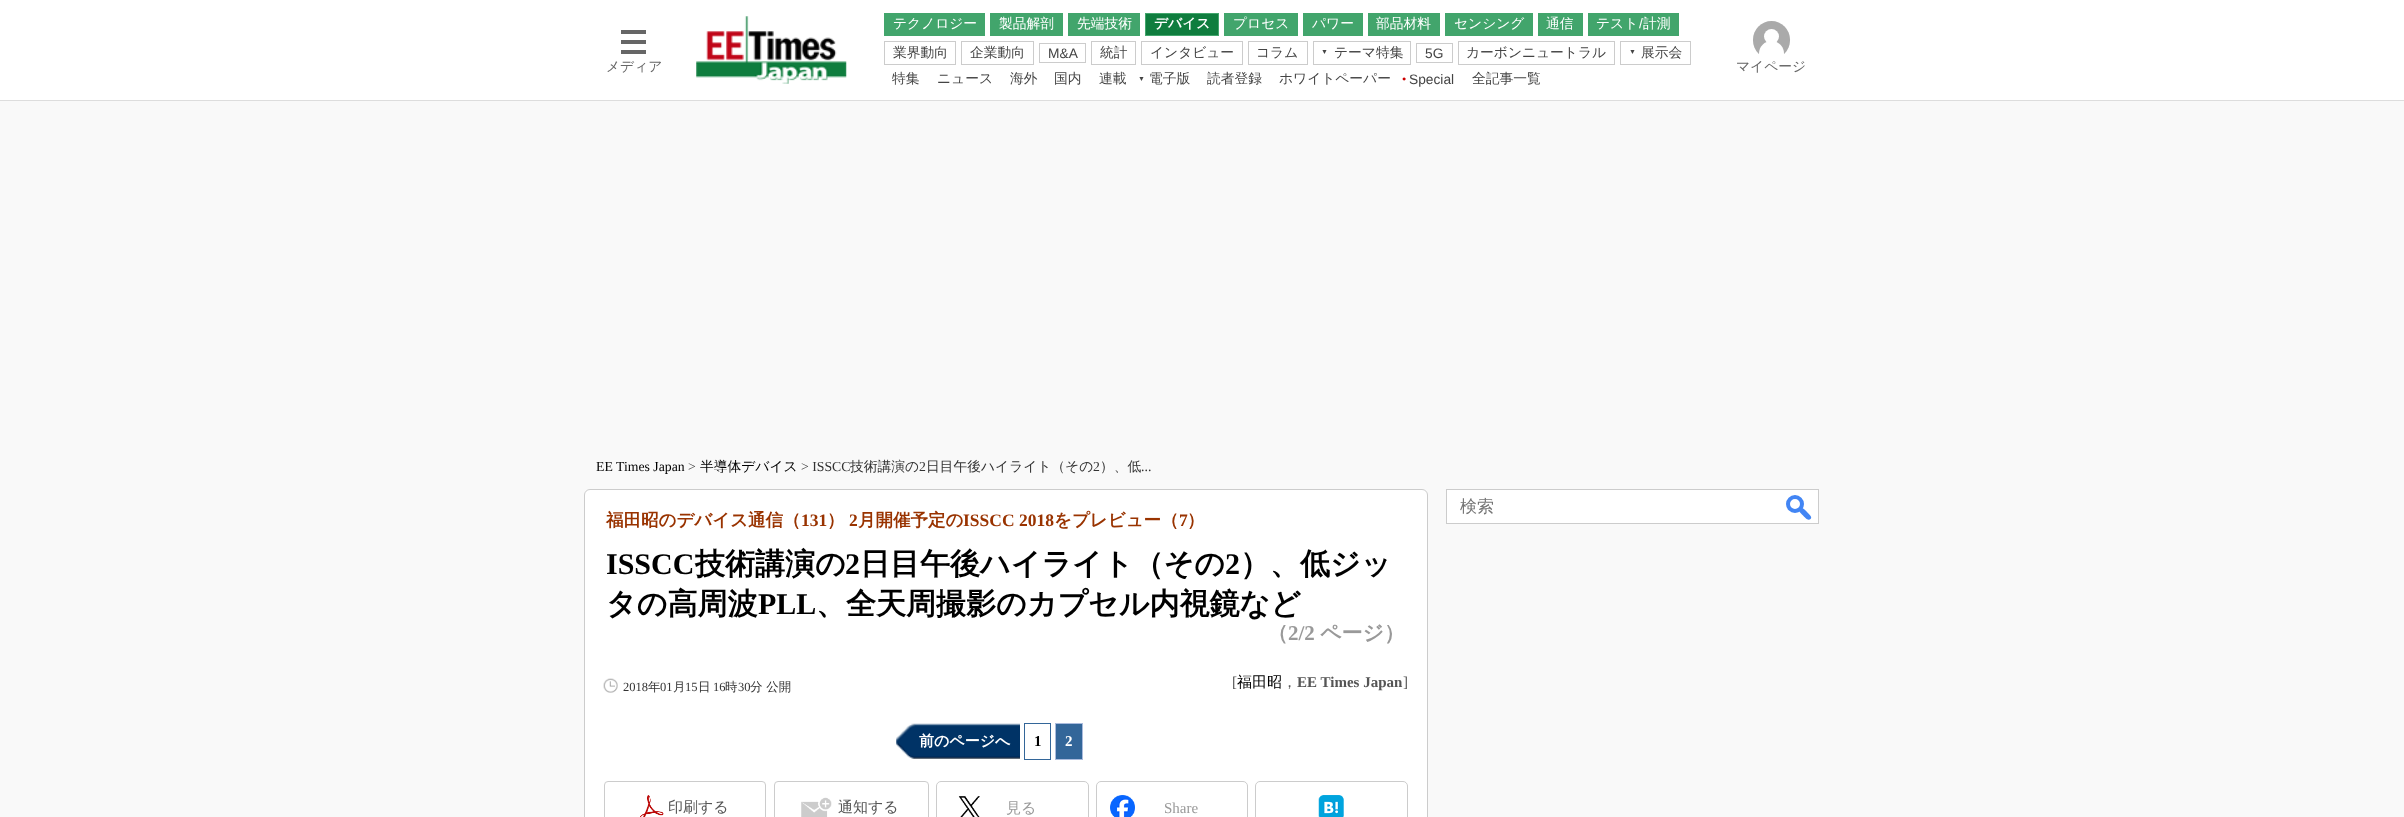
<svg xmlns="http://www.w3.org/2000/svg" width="2404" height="817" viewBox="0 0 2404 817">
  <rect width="100%" height="100%" fill="rgb(249,249,249)"/>
  <rect x="0" y="0" width="2404" height="100" fill="rgb(255,255,255)"/>
  <rect x="0" y="100" width="2404" height="1" fill="rgb(221,221,221)"/>
  <rect x="621" y="30" width="25" height="4" fill="rgb(102,102,102)"/>
  <rect x="621" y="40" width="25" height="4" fill="rgb(102,102,102)"/>
  <rect x="621" y="50" width="25" height="4" fill="rgb(102,102,102)"/>
  <text x="606" y="71" font-family="WenQuanYi Zen Hei" font-size="13.75" font-weight="500" fill="rgb(102,102,102)">メディア</text>
  <image x="696" y="16" width="151" height="68" href="pic1.png"/>
  <rect x="884" y="13" width="101" height="23" fill="rgb(66,165,108)"/>
  <text x="893" y="28" font-family="WenQuanYi Zen Hei" font-size="13.75" font-weight="500" fill="rgb(255,255,255)">テクノロジー</text>
  <rect x="990" y="13" width="73" height="23" fill="rgb(66,165,108)"/>
  <text x="999" y="28" font-family="WenQuanYi Zen Hei" font-size="13.75" font-weight="500" fill="rgb(255,255,255)">製品解剖</text>
  <rect x="1068" y="13" width="72" height="23" fill="rgb(66,165,108)"/>
  <text x="1077" y="28" font-family="WenQuanYi Zen Hei" font-size="13.75" font-weight="500" fill="rgb(255,255,255)">先端技術</text>
  <rect x="1145" y="13" width="74" height="23" fill="rgb(66,165,108)"/>
  <rect x="1146" y="14" width="72" height="21" fill="rgb(15,125,62)"/>
  <text x="1154" y="28" font-family="WenQuanYi Zen Hei" font-size="13.75" font-weight="bold" fill="rgb(255,255,255)">デバイス</text>
  <rect x="1224" y="13" width="74" height="23" fill="rgb(66,165,108)"/>
  <text x="1233" y="28" font-family="WenQuanYi Zen Hei" font-size="13.75" font-weight="500" fill="rgb(255,255,255)">プロセス</text>
  <rect x="1303" y="13" width="60" height="23" fill="rgb(66,165,108)"/>
  <text x="1312" y="28" font-family="WenQuanYi Zen Hei" font-size="13.75" font-weight="500" fill="rgb(255,255,255)">パワー</text>
  <rect x="1368" y="13" width="72" height="23" fill="rgb(66,165,108)"/>
  <text x="1376" y="28" font-family="WenQuanYi Zen Hei" font-size="13.75" font-weight="500" fill="rgb(255,255,255)">部品材料</text>
  <rect x="1445" y="13" width="88" height="23" fill="rgb(66,165,108)"/>
  <text x="1454" y="28" font-family="WenQuanYi Zen Hei" font-size="13.75" font-weight="500" fill="rgb(255,255,255)">センシング</text>
  <rect x="1538" y="13" width="45" height="23" fill="rgb(66,165,108)"/>
  <text x="1546" y="28" font-family="WenQuanYi Zen Hei" font-size="13.75" font-weight="500" fill="rgb(255,255,255)">通信</text>
  <rect x="1588" y="13" width="91" height="23" fill="rgb(66,165,108)"/>
  <text x="1596" y="28" font-family="WenQuanYi Zen Hei" font-size="13.75" font-weight="500" fill="rgb(255,255,255)">テスト</text>
  <text x="1639" y="28" font-family="Liberation Sans" font-size="13.75" fill="rgb(255,255,255)">/</text>
  <text x="1643" y="28" font-family="WenQuanYi Zen Hei" font-size="13.75" font-weight="500" fill="rgb(255,255,255)">計測</text>
  <rect x="884.5" y="41.5" width="71" height="23" fill="none" stroke="rgb(204,204,204)"/>
  <text x="893" y="57" font-family="WenQuanYi Zen Hei" font-size="13.75" font-weight="500" fill="rgb(68,68,68)">業界動向</text>
  <rect x="961.5" y="41.5" width="72" height="23" fill="none" stroke="rgb(204,204,204)"/>
  <text x="970" y="57" font-family="WenQuanYi Zen Hei" font-size="13.75" font-weight="500" fill="rgb(68,68,68)">企業動向</text>
  <rect x="1039.5" y="43.5" width="46" height="19" fill="none" stroke="rgb(204,204,204)"/>
  <text x="1048" y="58" font-family="Liberation Sans" font-size="13.75" fill="rgb(68,68,68)">M&amp;A</text>
  <rect x="1091.5" y="41.5" width="44" height="23" fill="none" stroke="rgb(204,204,204)"/>
  <text x="1100" y="57" font-family="WenQuanYi Zen Hei" font-size="13.75" font-weight="500" fill="rgb(68,68,68)">統計</text>
  <rect x="1141.5" y="41.5" width="101" height="23" fill="none" stroke="rgb(204,204,204)"/>
  <text x="1150" y="57" font-family="WenQuanYi Zen Hei" font-size="13.75" font-weight="500" fill="rgb(68,68,68)">インタビュー</text>
  <rect x="1248.5" y="41.5" width="59" height="23" fill="none" stroke="rgb(204,204,204)"/>
  <text x="1256" y="57" font-family="WenQuanYi Zen Hei" font-size="13.75" font-weight="500" fill="rgb(68,68,68)">コラム</text>
  <rect x="1313.5" y="41.5" width="97" height="23" fill="none" stroke="rgb(204,204,204)"/>
  <text x="1321" y="54" font-family="Liberation Sans" font-size="7" fill="rgb(68,68,68)">▼</text>
  <text x="1334" y="57" font-family="WenQuanYi Zen Hei" font-size="13.75" font-weight="500" fill="rgb(68,68,68)">テーマ特集</text>
  <rect x="1416.5" y="43.5" width="36" height="19" fill="none" stroke="rgb(204,204,204)"/>
  <text x="1425" y="58" font-family="Liberation Sans" font-size="13.75" fill="rgb(68,68,68)">5G</text>
  <rect x="1458.5" y="41.5" width="156" height="23" fill="none" stroke="rgb(204,204,204)"/>
  <text x="1466" y="57" font-family="WenQuanYi Zen Hei" font-size="13.75" font-weight="500" fill="rgb(68,68,68)">カーボンニュートラル</text>
  <rect x="1620.5" y="41.5" width="70" height="23" fill="none" stroke="rgb(204,204,204)"/>
  <text x="1629" y="54" font-family="Liberation Sans" font-size="7" fill="rgb(68,68,68)">▼</text>
  <g font-family="WenQuanYi Zen Hei" font-size="13.75" font-weight="500" fill="rgb(68,68,68)">
    <text x="1641" y="57">展示会</text>
    <text x="892" y="83">特集</text>
    <text x="937" y="83">ニュース</text>
    <text x="1010" y="83">海外</text>
    <text x="1054" y="83">国内</text>
    <text x="1099" y="83">連載</text>
  </g>
  <text x="1138" y="81" font-family="Liberation Sans" font-size="7" fill="rgb(68,68,68)">▼</text>
  <g font-family="WenQuanYi Zen Hei" font-size="13.75" font-weight="500" fill="rgb(68,68,68)">
    <text x="1149" y="83">電子版</text>
    <text x="1207" y="83">読者登録</text>
    <text x="1279" y="83">ホワイトペーパー</text>
  </g>
  <text x="1402" y="81" font-family="Liberation Sans" font-size="7" fill="rgb(204,0,0)">●</text>
  <text x="1409" y="84" font-family="Liberation Sans" font-size="13.75" fill="rgb(68,68,68)">Special</text>
  <text x="1472" y="83" font-family="WenQuanYi Zen Hei" font-size="13.75" font-weight="500" fill="rgb(68,68,68)">全記事一覧</text>
  <rect x="1753" y="21" width="37" height="38" rx="18.5" fill="rgb(170,170,170)"/>
  <path d="M1771.5 41C1778.5 41 1784 46.5 1784 53.5V59H1759V53.5C1759 46.5 1764.5 41 1771.5 41Z" fill="rgb(255,255,255)"/>
  <circle cx="1771.5" cy="36.5" r="7.5" fill="rgb(255,255,255)"/>
  <text x="1736" y="71" font-family="WenQuanYi Zen Hei" font-size="13.75" font-weight="500" fill="rgb(102,102,102)">マイページ</text>
  <text x="596" y="471" font-family="Liberation Serif" font-size="13.75" fill="rgb(0,0,0)">EE Times Japan</text>
  <text x="688" y="471" font-family="Liberation Serif" font-size="13.75" fill="rgb(51,51,51)">&gt;</text>
  <text x="700" y="471" font-family="WenQuanYi Zen Hei" font-size="13.75" font-weight="500" fill="rgb(0,0,0)">半導体デバイス</text>
  <text x="801" y="471" font-family="Liberation Serif" font-size="13.75" fill="rgb(51,51,51)">&gt; ISSCC</text>
  <text x="850" y="471" font-family="WenQuanYi Zen Hei" font-size="13.75" font-weight="500" fill="rgb(51,51,51)">技術講演の</text>
  <text x="919" y="471" font-family="Liberation Serif" font-size="13.75" fill="rgb(51,51,51)">2</text>
  <text x="926" y="471" font-family="WenQuanYi Zen Hei" font-size="13.75" font-weight="500" fill="rgb(51,51,51)">日目午後ハイライト（その</text>
  <text x="1093" y="471" font-family="Liberation Serif" font-size="13.75" fill="rgb(51,51,51)">2</text>
  <text x="1100" y="471" font-family="WenQuanYi Zen Hei" font-size="13.75" font-weight="500" fill="rgb(51,51,51)">）、低</text>
  <text x="1141" y="471" font-family="Liberation Serif" font-size="13.75" fill="rgb(51,51,51)">...</text>
  <rect x="1446.5" y="489.5" width="372" height="34" fill="rgb(255,255,255)" stroke="rgb(204,204,204)"/>
  <text x="1460" y="512" font-family="WenQuanYi Zen Hei" font-size="17" font-weight="500" fill="rgb(117,117,117)">検索</text>
  <circle cx="1795" cy="504" r="7" fill="none" stroke="rgb(66,133,244)" stroke-width="4"/>
  <path d="M1799.5 508.5C1802 506 1805.5 510.5 1807 512C1808 513.5 1813 516.5 1810.5 519C1808 521.5 1804.5 517 1803 515.5C1802 514 1797 511 1799.5 508.5Z" fill="rgb(66,133,244)"/>
  <rect x="584.5" y="489.5" width="843" height="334" rx="5.5" fill="rgb(255,255,255)" stroke="rgb(204,204,204)"/>
  <text x="606" y="526" font-family="WenQuanYi Zen Hei" font-size="17.5" font-weight="bold" fill="rgb(153,51,0)">福田昭のデバイス通信（</text>
  <text x="801" y="526" font-family="Liberation Serif" font-size="17.5" font-weight="bold" fill="rgb(153,51,0)">131</text>
  <text x="827" y="526" font-family="WenQuanYi Zen Hei" font-size="17.5" font-weight="bold" fill="rgb(153,51,0)">）</text>
  <text x="849" y="526" font-family="Liberation Serif" font-size="17.5" font-weight="bold" fill="rgb(153,51,0)">2</text>
  <text x="858" y="526" font-family="WenQuanYi Zen Hei" font-size="17.5" font-weight="bold" fill="rgb(153,51,0)">月開催予定の</text>
  <text x="963" y="526" font-family="Liberation Serif" font-size="17.5" font-weight="bold" fill="rgb(153,51,0)">ISSCC 2018</text>
  <text x="1054" y="526" font-family="WenQuanYi Zen Hei" font-size="17.5" font-weight="bold" fill="rgb(153,51,0)">をプレビュー（</text>
  <text x="1179" y="526" font-family="Liberation Serif" font-size="17.5" font-weight="bold" fill="rgb(153,51,0)">7</text>
  <text x="1187" y="526" font-family="WenQuanYi Zen Hei" font-size="17.5" font-weight="bold" fill="rgb(153,51,0)">）</text>
  <text x="606" y="574" font-family="Liberation Serif" font-size="30" font-weight="bold" fill="rgb(0,0,0)">ISSCC</text>
  <text x="695" y="574" font-family="WenQuanYi Zen Hei" font-size="30" font-weight="bold" fill="rgb(0,0,0)">技術講演の</text>
  <text x="845" y="574" font-family="Liberation Serif" font-size="30" font-weight="bold" fill="rgb(0,0,0)">2</text>
  <text x="860" y="574" font-family="WenQuanYi Zen Hei" font-size="30" font-weight="bold" fill="rgb(0,0,0)">日目午後ハイライト（その</text>
  <text x="1225" y="574" font-family="Liberation Serif" font-size="30" font-weight="bold" fill="rgb(0,0,0)">2</text>
  <g font-family="WenQuanYi Zen Hei" font-size="30" font-weight="bold" fill="rgb(0,0,0)">
    <text x="1240" y="574">）、低ジッ</text>
    <text x="606" y="614">タの高周波</text>
  </g>
  <text x="758" y="614" font-family="Liberation Serif" font-size="30" font-weight="bold" fill="rgb(0,0,0)">PLL</text>
  <text x="816" y="614" font-family="WenQuanYi Zen Hei" font-size="30" font-weight="bold" fill="rgb(0,0,0)">、全天周撮影のカプセル内視鏡など</text>
  <text x="1267" y="640" font-family="WenQuanYi Zen Hei" font-size="21" font-weight="bold" fill="rgb(153,153,153)">（</text>
  <text x="1288" y="640" font-family="Liberation Serif" font-size="21" font-weight="bold" fill="rgb(153,153,153)">2/2</text>
  <text x="1320" y="640" font-family="WenQuanYi Zen Hei" font-size="21" font-weight="bold" fill="rgb(153,153,153)">ページ）</text>
  <image x="603" y="678" width="15" height="15" href="pic2.png"/>
  <text x="623" y="691" font-family="Liberation Serif" font-size="12.5" fill="rgb(51,51,51)">2018</text>
  <text x="648" y="691" font-family="WenQuanYi Zen Hei" font-size="12.5" font-weight="500" fill="rgb(51,51,51)">年</text>
  <text x="660" y="691" font-family="Liberation Serif" font-size="12.5" fill="rgb(51,51,51)">01</text>
  <text x="673" y="691" font-family="WenQuanYi Zen Hei" font-size="12.5" font-weight="500" fill="rgb(51,51,51)">月</text>
  <text x="685" y="691" font-family="Liberation Serif" font-size="12.5" fill="rgb(51,51,51)">15</text>
  <text x="698" y="691" font-family="WenQuanYi Zen Hei" font-size="12.5" font-weight="500" fill="rgb(51,51,51)">日</text>
  <text x="713" y="691" font-family="Liberation Serif" font-size="12.5" fill="rgb(51,51,51)">16</text>
  <text x="725" y="691" font-family="WenQuanYi Zen Hei" font-size="12.5" font-weight="500" fill="rgb(51,51,51)">時</text>
  <text x="738" y="691" font-family="Liberation Serif" font-size="12.5" fill="rgb(51,51,51)">30</text>
  <text x="750" y="691" font-family="WenQuanYi Zen Hei" font-size="12.5" font-weight="500" fill="rgb(51,51,51)">分 公開</text>
  <text x="1232" y="687" font-family="Liberation Serif" font-size="15" fill="rgb(85,85,85)">[</text>
  <text x="1237" y="687" font-family="WenQuanYi Zen Hei" font-size="15" font-weight="500" fill="rgb(0,0,0)">福田昭</text>
  <text x="1282" y="687" font-family="WenQuanYi Zen Hei" font-size="15" font-weight="500" fill="rgb(85,85,85)">，</text>
  <text x="1297" y="687" font-family="Liberation Serif" font-size="15" font-weight="bold" fill="rgb(85,85,85)">EE Times Japan</text>
  <text x="1403" y="687" font-family="Liberation Serif" font-size="15" fill="rgb(85,85,85)">]</text>
  <image x="896" y="723" width="124" height="36" href="pic3.png"/>
  <text x="919" y="746" font-family="WenQuanYi Zen Hei" font-size="15" font-weight="bold" fill="rgb(255,255,255)">前のページへ</text>
  <rect x="1024.5" y="723.5" width="26" height="36" fill="none" stroke="rgb(51,102,153)"/>
  <text x="1034" y="746" font-family="Liberation Serif" font-size="15" font-weight="bold" fill="rgb(0,0,0)">1</text>
  <rect x="1055.5" y="723.5" width="27" height="36" fill="rgb(51,102,153)" stroke="rgb(170,187,221)"/>
  <text x="1065" y="746" font-family="Liberation Serif" font-size="15" font-weight="bold" fill="rgb(255,255,255)">2</text>
  <image x="640" y="795" width="24" height="22" href="pic4.png"/>
  <rect x="604.5" y="781.5" width="161" height="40" rx="3.5" fill="none" stroke="rgb(204,204,204)"/>
  <text x="668" y="812" font-family="WenQuanYi Zen Hei" font-size="15" font-weight="500" fill="rgb(85,85,85)">印刷する</text>
  <image x="801" y="797" width="31" height="20" href="pic5.png"/>
  <rect x="774.5" y="781.5" width="154" height="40" rx="3.5" fill="none" stroke="rgb(204,204,204)"/>
  <text x="838" y="812" font-family="WenQuanYi Zen Hei" font-size="15" font-weight="500" fill="rgb(85,85,85)">通知する</text>
  <image x="958" y="796" width="22" height="21" href="pic6.png"/>
  <rect x="936.5" y="781.5" width="152" height="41" rx="4.5" fill="none" stroke="rgb(204,204,204)"/>
  <text x="1006" y="813" font-family="WenQuanYi Zen Hei" font-size="15" font-weight="500" fill="rgb(153,153,153)">見る</text>
  <image x="1110" y="795" width="25" height="22" href="pic7.png"/>
  <rect x="1096.5" y="781.5" width="151" height="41" rx="4.5" fill="none" stroke="rgb(204,204,204)"/>
  <text x="1164" y="813" font-family="Liberation Serif" font-size="15" fill="rgb(153,153,153)">Share</text>
  <image x="1318" y="795" width="26" height="22" href="pic8.png"/>
  <rect x="1255.5" y="781.5" width="152" height="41" rx="4.5" fill="none" stroke="rgb(204,204,204)"/>
</svg>
